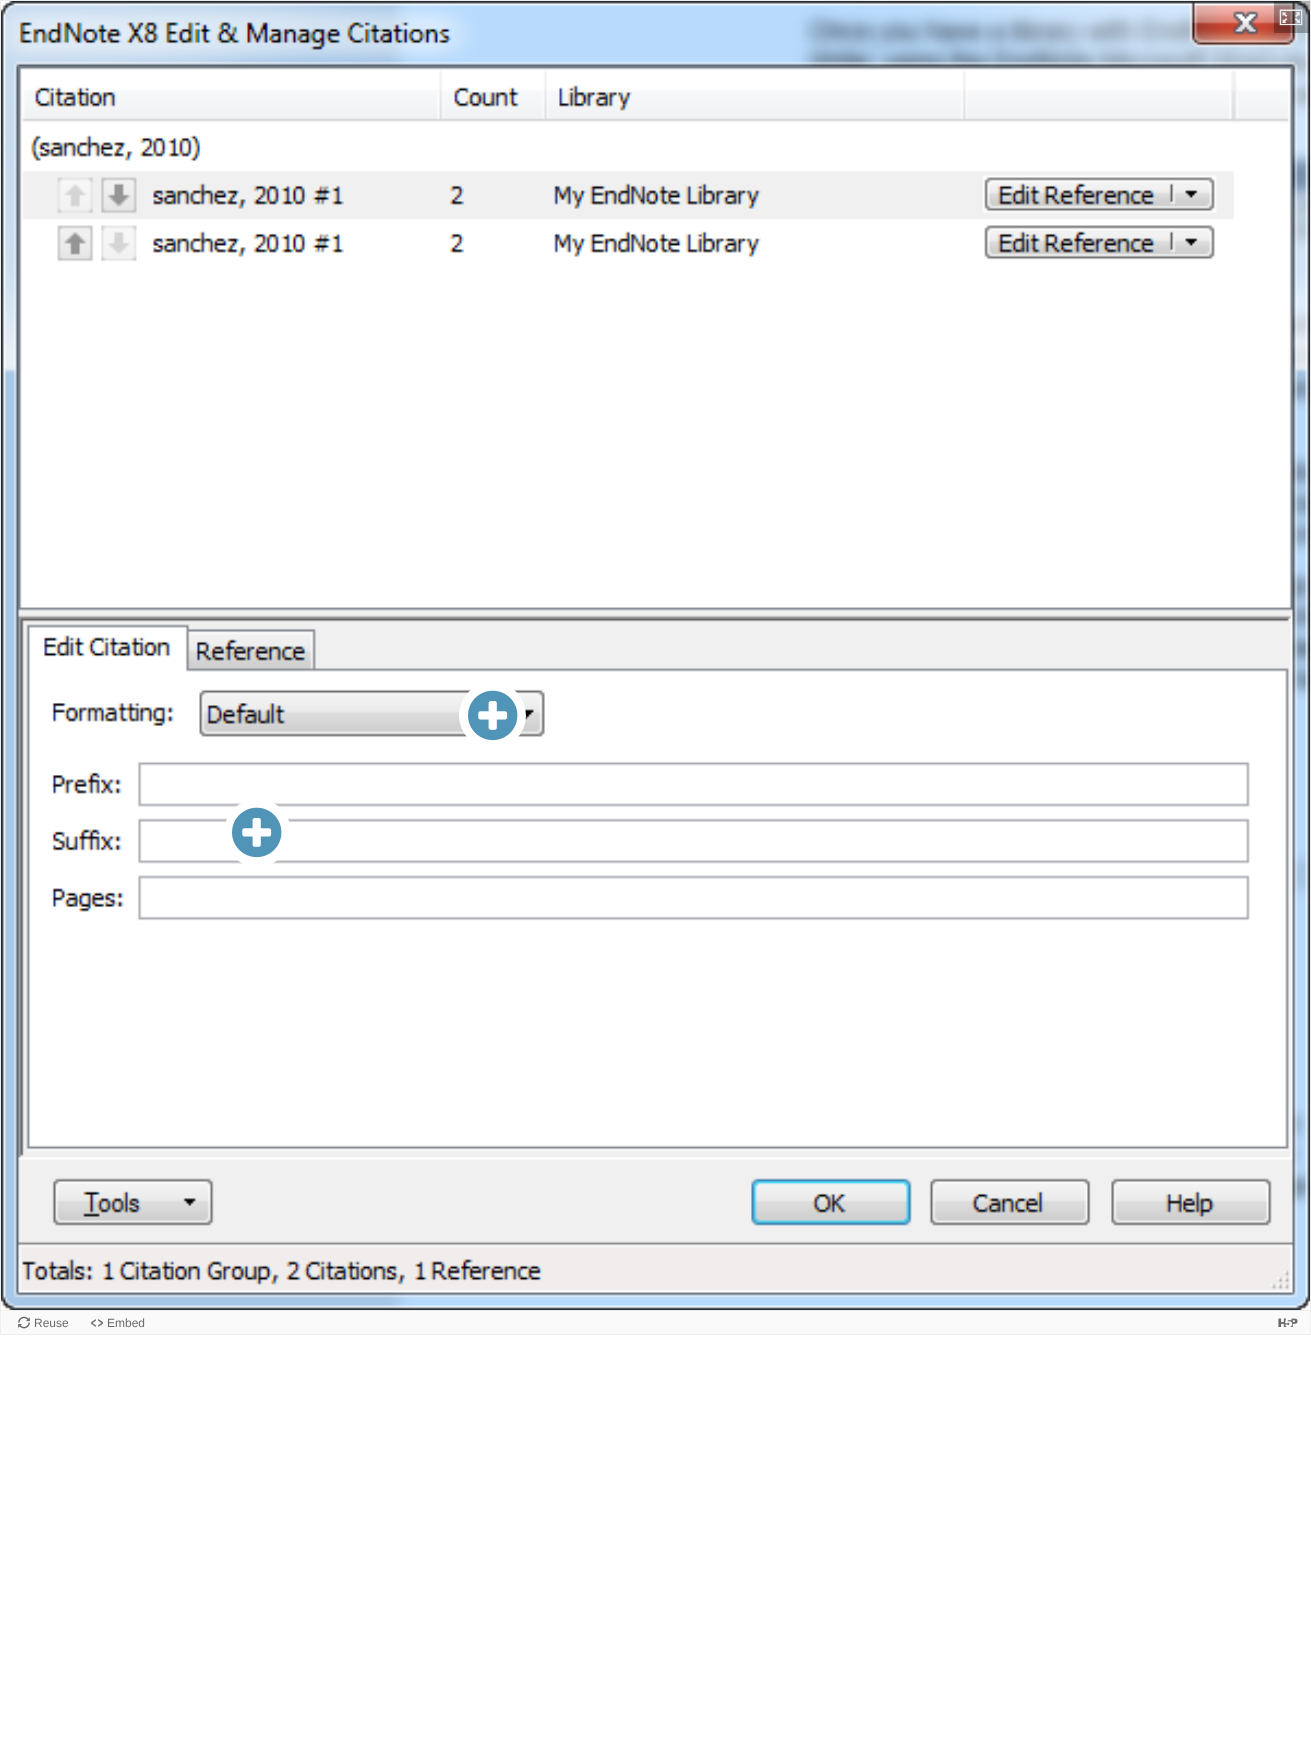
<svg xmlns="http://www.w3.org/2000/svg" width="1311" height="1758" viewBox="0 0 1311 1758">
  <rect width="100%" height="100%" fill="rgb(255,255,255)"/>
  <rect x="0" y="0" width="1311" height="1" fill="rgb(238,238,238)"/>
  <rect x="1310" y="0" width="1" height="1335" fill="rgb(238,238,238)"/>
  <rect x="0" y="0" width="1" height="1335" fill="rgb(238,238,238)"/>
  <image x="1" y="1" width="1309" height="1309" href="pic1.png"/>
  <circle cx="492.5" cy="715.5" r="33.5" fill="rgb(255,255,255)"/>
  <image x="468" y="690" width="50" height="51" href="pic2.png"/>
  <rect x="224" y="799" width="67" height="68" rx="33.5" fill="rgb(255,255,255)"/>
  <image x="232" y="807" width="50" height="51" href="pic3.png"/>
  <rect x="1274" y="1" width="36" height="32" fill="rgba(0,0,0,0.3)"/>
  <image x="1279" y="9" width="24" height="17" href="pic4.png"/>
  <rect x="1" y="1311" width="1309" height="23" fill="rgb(250,250,250)"/>
  <rect x="1" y="1310" width="1309" height="1" fill="rgb(238,238,238)"/>
  <rect x="1" y="1334" width="1309" height="1" fill="rgb(238,238,238)"/>
  <image x="18" y="1316" width="12" height="13" href="pic5.png"/>
  <text x="34" y="1327" font-family="Liberation Sans" font-size="12" fill="rgb(106,106,106)">Reuse</text>
  <image x="91" y="1319" width="12" height="8" href="pic6.png"/>
  <text x="107" y="1327" font-family="Liberation Sans" font-size="12" fill="rgb(106,106,106)">Embed</text>
  <image x="1278" y="1318" width="20" height="9" href="pic7.png"/>
</svg>
